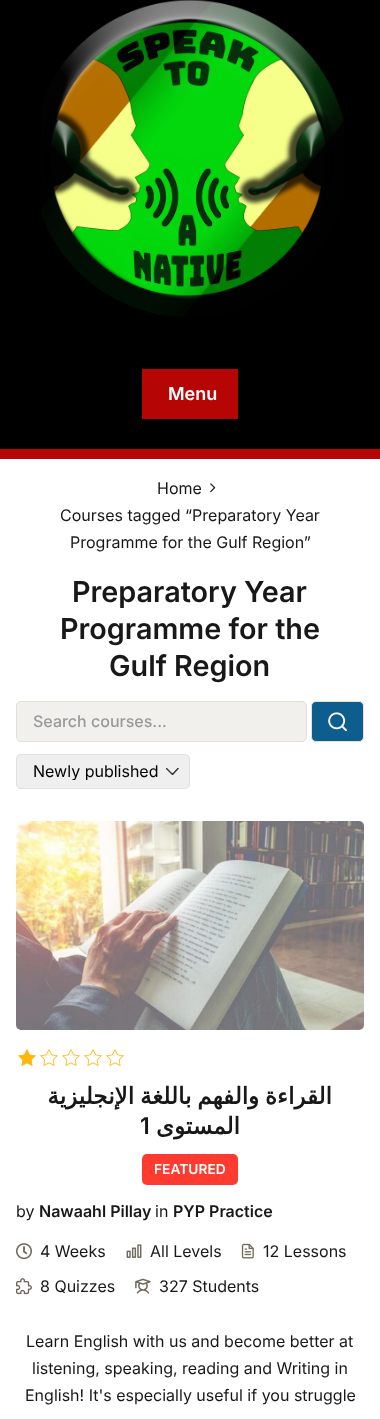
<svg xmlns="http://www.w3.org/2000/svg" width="380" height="1419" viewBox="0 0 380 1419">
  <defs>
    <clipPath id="clip1"><rect x="166" y="768" width="13" height="7"/></clipPath>
    <clipPath id="clip2"><rect x="33" y="763" width="126" height="17"/></clipPath>
  </defs>
  <rect width="100%" height="100%" fill="rgb(255,255,255)"/>
  <rect x="0" y="0" width="380" height="449" fill="rgb(0,0,0)"/>
  <rect x="0" y="449" width="380" height="10" fill="rgb(181,5,5)"/>
  <image x="41" y="0" width="303" height="317" href="pic1.png"/>
  <rect x="142" y="369" width="96" height="50" fill="rgb(181,5,5)"/>
  <text x="168" y="400" font-family="Inter" font-size="18" font-weight="600" fill="rgb(255,255,255)">Menu</text>
  <text x="157" y="494" font-family="Inter" font-size="16" fill="rgb(24,24,24)">Home</text>
  <image x="210" y="483" width="6" height="10" href="pic2.png"/>
  <g font-family="Inter" font-size="16" fill="rgb(24,24,24)">
    <text x="60" y="521">Courses tagged “Preparatory Year</text>
    <text x="70" y="548">Programme for the Gulf Region”</text>
  </g>
  <g font-family="Inter" font-size="28.75" font-weight="600" fill="rgb(24,24,24)">
    <text x="72" y="602">Preparatory Year</text>
    <text x="60" y="639">Programme for the</text>
    <text x="109" y="676">Gulf Region</text>
  </g>
  <rect x="16.5" y="701.5" width="290" height="40" rx="4.5" fill="rgb(242,240,237)" stroke="rgb(226,224,219)"/>
  <text x="33" y="727" font-family="Inter" font-size="16" font-weight="500" fill="rgb(153,153,153)">Search courses...</text>
  <rect x="311.5" y="701.5" width="52" height="40" rx="4.5" fill="rgb(13,93,143)" stroke="rgb(226,224,219)"/>
  <image x="328" y="712" width="19" height="20" href="pic3.png"/>
  <rect x="16" y="754" width="174" height="35" rx="5" fill="rgb(239,239,239)"/>
  <g clip-path="url(#clip1)">
    <path d="M166.5 768.5L172.5 774.5L178 768.5" fill="none" stroke="rgb(51,51,51)" stroke-width="1.4" stroke-linecap="round" stroke-linejoin="round"/>
  </g>
  <rect x="16.5" y="754.5" width="173" height="34" rx="4.5" fill="none" stroke="rgb(226,224,219)"/>
  <g clip-path="url(#clip2)">
    <text x="33" y="777" font-family="Inter" font-size="16" fill="rgb(0,0,0)">Newly published</text>
  </g>
  <image x="16" y="821" width="348" height="209" href="pic4.png"/>
  <image x="18" y="1049" width="18" height="17" href="pic5.png"/>
  <image x="18" y="1049" width="18" height="17" href="pic6.png"/>
  <image x="40" y="1049" width="18" height="17" href="pic5.png"/>
  <image x="62" y="1049" width="18" height="17" href="pic5.png"/>
  <image x="84" y="1049" width="18" height="17" href="pic5.png"/>
  <image x="106" y="1049" width="18" height="17" href="pic5.png"/>
  <text x="332" y="1104" word-spacing="-1.5" font-family="DejaVu Sans" font-size="23" font-weight="bold" direction="rtl" fill="rgb(24,24,24)">القراءة والفهم باللغة الإنجليزية</text>
  <text x="140" y="1134" font-family="Inter" font-size="23" font-weight="600" fill="rgb(24,24,24)">1</text>
  <text x="240" y="1134" font-family="DejaVu Sans" font-size="23" font-weight="bold" direction="rtl" fill="rgb(24,24,24)">المستوى</text>
  <rect x="142" y="1154" width="96" height="31" rx="5" fill="rgb(255,59,48)"/>
  <text x="154" y="1174" font-family="Inter" font-size="13.75" font-weight="600" fill="rgb(255,255,255)">FEATURED</text>
  <text x="16" y="1217" font-family="Inter" font-size="16" fill="rgb(24,24,24)">by</text>
  <text x="39" y="1217" font-family="Inter" font-size="16" font-weight="600" fill="rgb(24,24,24)">Nawaahl Pillay</text>
  <text x="155" y="1217" font-family="Inter" font-size="16" fill="rgb(24,24,24)">in</text>
  <text x="173" y="1217" font-family="Inter" font-size="16" font-weight="600" fill="rgb(24,24,24)">PYP Practice</text>
  <image x="16" y="1243" width="16" height="17" href="pic7.png"/>
  <text x="40" y="1257" font-family="Inter" font-size="16" fill="rgb(24,24,24)">4 Weeks</text>
  <image x="126" y="1244" width="16" height="14" href="pic8.png"/>
  <text x="150" y="1257" font-family="Inter" font-size="16" fill="rgb(24,24,24)">All Levels</text>
  <image x="241" y="1243" width="13" height="16" href="pic9.png"/>
  <text x="263" y="1257" font-family="Inter" font-size="16" fill="rgb(24,24,24)">12 Lessons</text>
  <image x="16" y="1278" width="16" height="17" href="pic10.png"/>
  <text x="40" y="1292" font-family="Inter" font-size="16" fill="rgb(24,24,24)">8 Quizzes</text>
  <image x="135" y="1278" width="16" height="16" href="pic11.png"/>
  <g font-family="Inter" font-size="16" fill="rgb(24,24,24)">
    <text x="159" y="1292">327 Students</text>
    <text x="26" y="1347">Learn English with us and become better at</text>
    <text x="32" y="1374">listening, speaking, reading and Writing in</text>
    <text x="25" y="1401">English! It's especially useful if you struggle</text>
  </g>
</svg>
